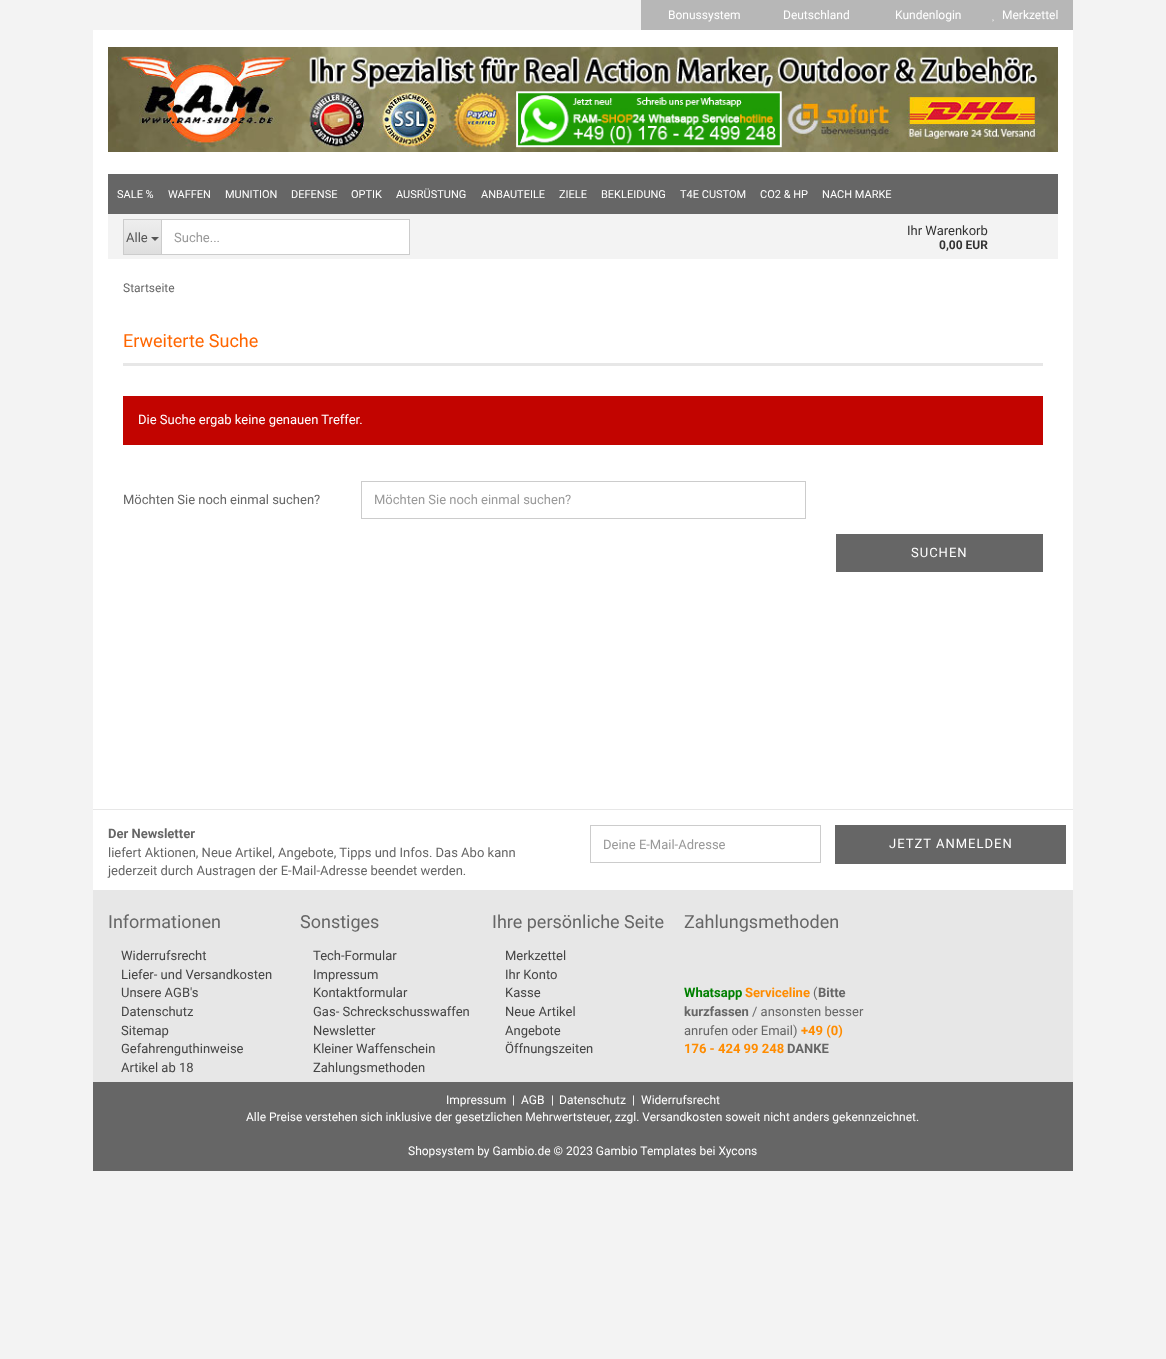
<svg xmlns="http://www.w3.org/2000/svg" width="1166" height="1359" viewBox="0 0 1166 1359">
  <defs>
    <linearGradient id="g1" gradientUnits="userSpaceOnUse" x1="143" y1="220" x2="143" y2="254"><stop offset="0" stop-color="rgb(238,238,238)"/><stop offset="1" stop-color="rgb(222,222,222)"/></linearGradient>
  </defs>
  <rect width="100%" height="100%" fill="rgb(243,243,243)"/>
  <rect x="93" y="30" width="980" height="779" fill="rgb(255,255,255)"/>
  <rect x="641" y="0" width="432" height="30" fill="rgb(183,183,183)"/>
  <g font-family="Roboto" font-size="12" fill="rgb(255,255,255)">
    <text x="668" y="19">Bonussystem</text>
    <text x="783" y="19">Deutschland</text>
    <text x="895" y="19">Kundenlogin</text>
    <text x="1002" y="19">Merkzettel</text>
  </g>
  <image x="992" y="19" width="2" height="3" href="pic1.png"/>
  <image x="108" y="47" width="950" height="105" href="pic2.png"/>
  <rect x="108" y="174" width="950" height="40" fill="rgb(102,102,102)"/>
  <g font-family="Roboto" font-size="11" fill="rgb(255,255,255)">
    <text x="117" y="198">SALE %</text>
    <text x="168" y="198">WAFFEN</text>
    <text x="225" y="198">MUNITION</text>
    <text x="291" y="198">DEFENSE</text>
    <text x="351" y="198">OPTIK</text>
    <text x="396" y="198">AUSRÜSTUNG</text>
    <text x="481" y="198">ANBAUTEILE</text>
    <text x="559" y="198">ZIELE</text>
    <text x="601" y="198">BEKLEIDUNG</text>
    <text x="680" y="198">T4E CUSTOM</text>
    <text x="760" y="198">CO2 &amp; HP</text>
    <text x="822" y="198">NACH MARKE</text>
  </g>
  <rect x="108" y="214" width="950" height="45" fill="rgb(243,243,243)"/>
  <rect x="124" y="220" width="37" height="34" fill="url(#g1)"/>
  <rect x="123" y="219" width="38" height="1" fill="rgb(204,204,204)"/>
  <rect x="123" y="254" width="38" height="1" fill="rgb(204,204,204)"/>
  <rect x="123" y="219" width="1" height="36" fill="rgb(204,204,204)"/>
  <text x="126" y="242" font-family="Roboto" font-size="13" fill="rgb(85,85,85)">Alle</text>
  <path d="M151 237H159L155 241Z" fill="rgb(85,85,85)"/>
  <rect x="161.5" y="219.5" width="248" height="35" fill="rgb(255,255,255)" stroke="rgb(204,204,204)"/>
  <text x="174" y="242" font-family="Roboto" font-size="13" fill="rgb(153,153,153)">Suche...</text>
  <text x="907" y="235" font-family="Roboto" font-size="13" fill="rgb(51,51,51)">Ihr Warenkorb</text>
  <text x="939" y="249" font-family="Roboto" font-size="12" font-weight="bold" fill="rgb(51,51,51)">0,00 EUR</text>
  <text x="123" y="292" font-family="Roboto" font-size="12" fill="rgb(102,102,102)">Startseite</text>
  <rect x="123" y="363" width="920" height="3" fill="rgb(231,231,231)"/>
  <text x="123" y="347" font-family="Roboto" font-size="18" fill="rgb(255,102,0)">Erweiterte Suche</text>
  <rect x="123" y="396" width="920" height="49" fill="rgb(194,4,0)"/>
  <text x="138" y="424" font-family="Roboto" font-size="13" fill="rgb(255,255,255)">Die Suche ergab keine genauen Treffer.</text>
  <text x="123" y="504" font-family="Roboto" font-size="13" fill="rgb(102,102,102)">Möchten Sie noch einmal suchen?</text>
  <rect x="361.5" y="481.5" width="444" height="37" fill="none" stroke="rgb(204,204,204)"/>
  <text x="374" y="504" font-family="Roboto" font-size="13" fill="rgb(153,153,153)">Möchten Sie noch einmal suchen?</text>
  <rect x="836" y="534" width="207" height="38" fill="rgb(102,102,102)"/>
  <text x="911" y="557" font-family="Roboto" font-size="13" letter-spacing="1" fill="rgb(255,255,255)">SUCHEN</text>
  <rect x="93" y="890" width="980" height="192" fill="rgb(231,231,231)"/>
  <rect x="93" y="810" width="980" height="80" fill="rgb(255,255,255)"/>
  <rect x="93" y="809" width="980" height="1" fill="rgb(231,231,231)"/>
  <text x="108" y="838" font-family="Roboto" font-size="13" font-weight="bold" fill="rgb(102,102,102)">Der Newsletter</text>
  <g font-family="Roboto" font-size="13" fill="rgb(102,102,102)">
    <text>
      <tspan x="108" y="857">liefert Aktionen, Neue Artikel, Angebote, Tipps und Infos. Das Abo kann</tspan>
      <tspan x="108" y="875">jederzeit durch Austragen der E-Mail-Adresse beendet werden.</tspan>
    </text>
  </g>
  <rect x="590.5" y="825.5" width="230" height="37" fill="none" stroke="rgb(204,204,204)"/>
  <text x="603" y="849" font-family="Roboto" font-size="13" fill="rgb(153,153,153)">Deine E-Mail-Adresse</text>
  <rect x="835" y="825" width="231" height="39" fill="rgb(102,102,102)"/>
  <text x="889" y="848" font-family="Roboto" font-size="13" letter-spacing="1" fill="rgb(255,255,255)">JETZT ANMELDEN</text>
  <text x="108" y="928" font-family="Roboto" font-size="18" fill="rgb(102,102,102)">Informationen</text>
  <g font-family="Roboto" font-size="13" fill="rgb(68,68,68)">
    <text>
      <tspan x="121" y="960">Widerrufsrecht</tspan>
      <tspan x="121" y="979">Liefer- und Versandkosten</tspan>
      <tspan x="121" y="997">Unsere AGB's</tspan>
      <tspan x="121" y="1016">Datenschutz</tspan>
      <tspan x="121" y="1035">Sitemap</tspan>
      <tspan x="121" y="1053">Gefahrenguthinweise</tspan>
      <tspan x="121" y="1072">Artikel ab 18</tspan>
    </text>
  </g>
  <text x="300" y="928" font-family="Roboto" font-size="18" fill="rgb(102,102,102)">Sonstiges</text>
  <g font-family="Roboto" font-size="13" fill="rgb(68,68,68)">
    <text>
      <tspan x="313" y="960">Tech-Formular</tspan>
      <tspan x="313" y="979">Impressum</tspan>
      <tspan x="313" y="997">Kontaktformular</tspan>
      <tspan x="313" y="1016">Gas- Schreckschusswaffen</tspan>
      <tspan x="313" y="1035">Newsletter</tspan>
      <tspan x="313" y="1053">Kleiner Waffenschein</tspan>
      <tspan x="313" y="1072">Zahlungsmethoden</tspan>
    </text>
  </g>
  <text x="492" y="928" font-family="Roboto" font-size="18" fill="rgb(102,102,102)">Ihre persönliche Seite</text>
  <g font-family="Roboto" font-size="13" fill="rgb(68,68,68)">
    <text>
      <tspan x="505" y="960">Merkzettel</tspan>
      <tspan x="505" y="979">Ihr Konto</tspan>
      <tspan x="505" y="997">Kasse</tspan>
      <tspan x="505" y="1016">Neue Artikel</tspan>
      <tspan x="505" y="1035">Angebote</tspan>
      <tspan x="505" y="1053">Öffnungszeiten</tspan>
    </text>
  </g>
  <text x="684" y="928" font-family="Roboto" font-size="18" fill="rgb(102,102,102)">Zahlungsmethoden</text>
  <text x="684" y="997" font-family="Roboto" font-size="13" font-weight="bold" fill="rgb(0,128,0)">Whatsapp</text>
  <text x="745" y="997" font-family="Roboto" font-size="13" font-weight="bold" fill="rgb(255,140,0)">Serviceline</text>
  <text x="813" y="997" font-family="Roboto" font-size="13" fill="rgb(102,102,102)">(</text>
  <g font-family="Roboto" font-size="13" font-weight="bold" fill="rgb(102,102,102)">
    <text x="818" y="997">Bitte</text>
    <text x="684" y="1016">kurzfassen</text>
  </g>
  <g font-family="Roboto" font-size="13" fill="rgb(102,102,102)">
    <text x="752" y="1016">/ ansonsten besser</text>
    <text x="684" y="1035">anrufen oder Email)</text>
  </g>
  <g font-family="Roboto" font-size="13" font-weight="bold" fill="rgb(255,140,0)">
    <text x="801" y="1035">+49 (0)</text>
    <text x="684" y="1053">176 - 424 99 248</text>
  </g>
  <text x="787" y="1053" font-family="Roboto" font-size="13" font-weight="bold" fill="rgb(102,102,102)">DANKE</text>
  <rect x="93" y="1082" width="980" height="89" fill="rgb(102,102,102)"/>
  <g font-family="Roboto" font-size="12" fill="rgb(255,255,255)">
    <text x="446" y="1104">Impressum</text>
    <text x="512" y="1104">|</text>
    <text x="521" y="1104">AGB</text>
    <text x="551" y="1104">|</text>
    <text x="559" y="1104">Datenschutz</text>
    <text x="632" y="1104">|</text>
    <text x="641" y="1104">Widerrufsrecht</text>
    <text x="246" y="1121">Alle Preise verstehen sich inklusive der gesetzlichen Mehrwertsteuer, zzgl. Versandkosten soweit nicht anders gekennzeichnet.</text>
    <text x="408" y="1155">Shopsystem by Gambio.de © 2023 Gambio Templates bei Xycons</text>
  </g>
</svg>
